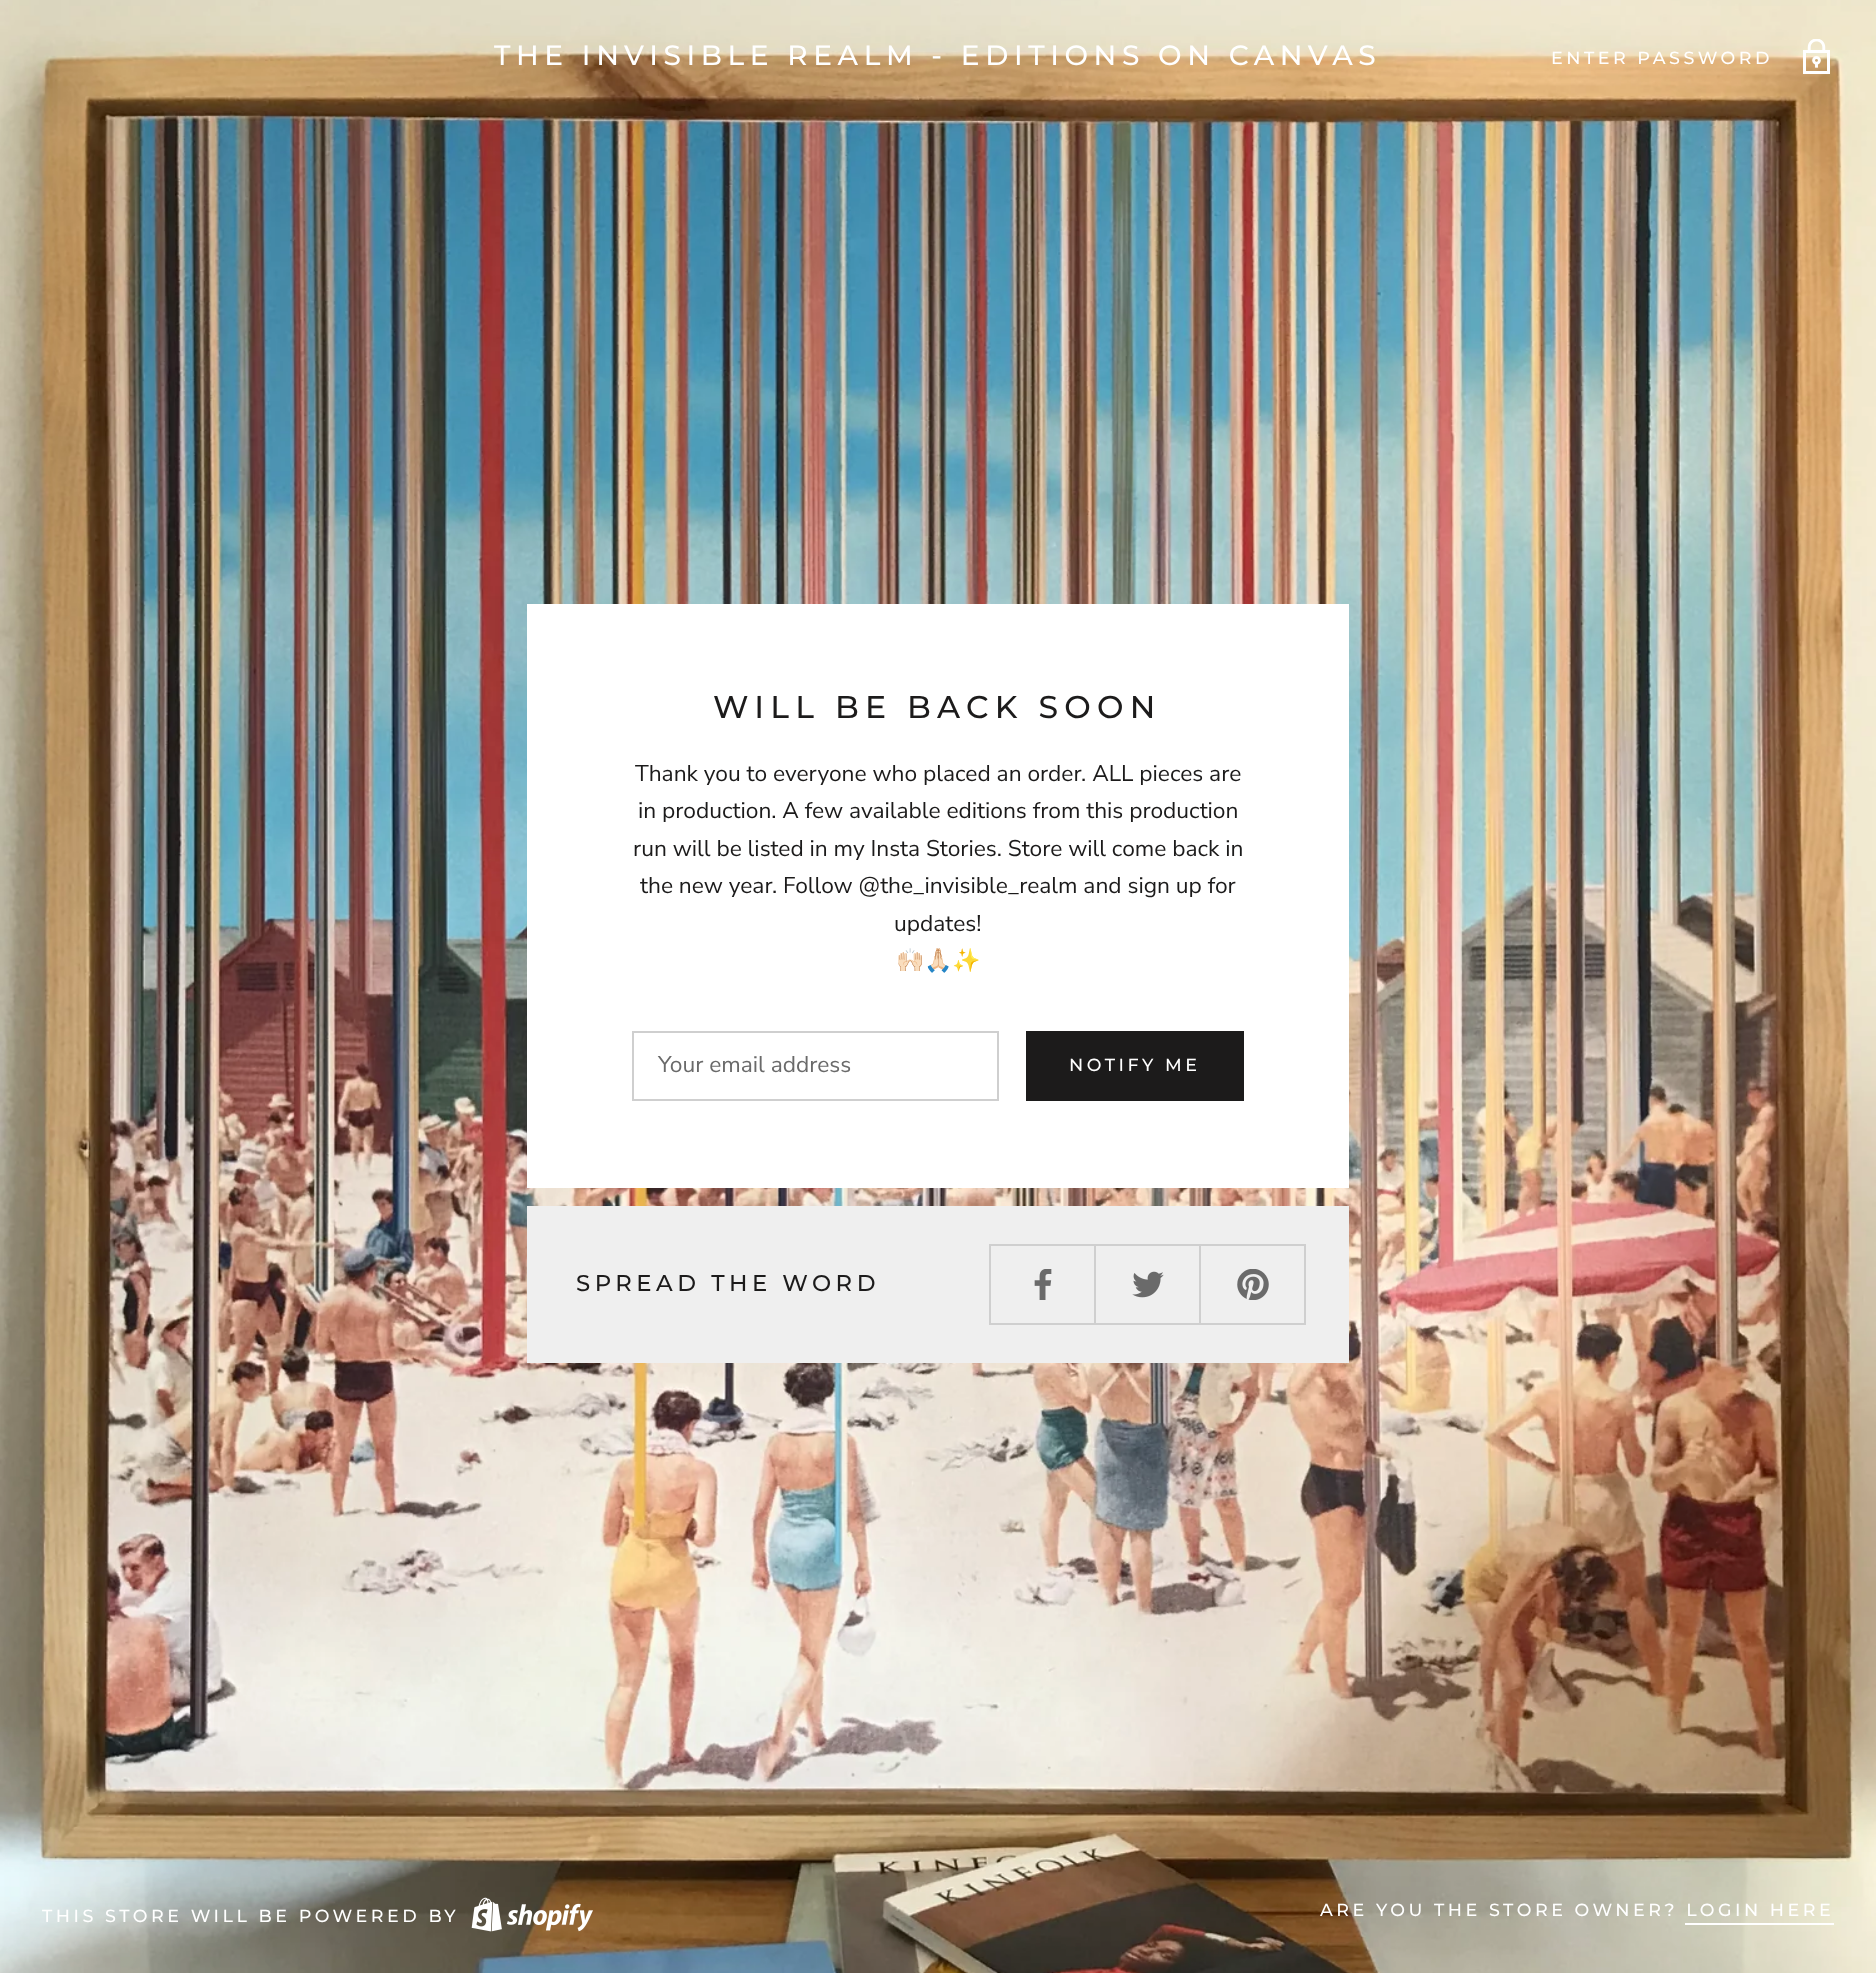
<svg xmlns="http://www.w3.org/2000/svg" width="1876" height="1973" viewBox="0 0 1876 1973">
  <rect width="100%" height="100%" fill="rgb(255,255,255)"/>
  <image x="0" y="0" width="1876" height="1973" href="pic1.png"/>
  <text x="494" y="65" font-family="Montserrat" font-size="28" font-weight="500" letter-spacing="5.6" fill="rgb(255,255,255)">THE INVISIBLE REALM - EDITIONS ON CANVAS</text>
  <text x="1551" y="64" font-family="Montserrat" font-size="17.5" font-weight="500" letter-spacing="3.5" fill="rgb(255,255,255)">ENTER PASSWORD</text>
  <image x="1803" y="39" width="27" height="35" href="pic2.png"/>
  <rect x="527" y="604" width="822" height="584" fill="rgb(255,255,255)"/>
  <text x="713" y="718" font-family="Montserrat" font-size="31.5" font-weight="500" letter-spacing="6.25" fill="rgb(28,27,27)">WILL BE BACK SOON</text>
  <g font-family="Nunito Sans" font-size="22.75" fill="rgb(28,27,27)">
    <text x="635" y="781">Thank you to everyone who placed an order. ALL pieces are</text>
    <text x="638" y="818">in production. A few available editions from this production</text>
    <text x="633" y="856">run will be listed in my Insta Stories. Store will come back in</text>
    <text x="640" y="893">the new year. Follow @the_invisible_realm and sign up for</text>
    <text x="894" y="931">updates!</text>
  </g>
  <text x="896" y="968" font-family="Noto Color Emoji" font-size="22.75" fill="rgb(28,27,27)">🙌🏻🙏🏻✨</text>
  <rect x="633" y="1032" width="365" height="68" fill="none" stroke="rgb(207,207,207)" stroke-width="2"/>
  <text x="658" y="1072" font-family="Nunito Sans" font-size="22.75" fill="rgb(106,106,106)">Your email address</text>
  <rect x="1027" y="1032" width="216" height="68" fill="none" stroke="rgb(28,27,27)" stroke-width="2"/>
  <rect x="1028" y="1033" width="214" height="66" fill="rgb(28,27,27)"/>
  <text x="1069" y="1071" font-family="Montserrat" font-size="17.5" font-weight="500" letter-spacing="3.5" fill="rgb(255,255,255)">NOTIFY ME</text>
  <rect x="527" y="1206" width="822" height="157" fill="rgb(239,239,239)"/>
  <text x="576" y="1291" font-family="Montserrat" font-size="22.75" font-weight="500" letter-spacing="4.5" fill="rgb(28,27,27)">SPREAD THE WORD</text>
  <rect x="1199" y="1244" width="107" height="2" fill="rgb(207,207,207)"/>
  <rect x="1304" y="1244" width="2" height="81" fill="rgb(207,207,207)"/>
  <rect x="1199" y="1323" width="107" height="2" fill="rgb(207,207,207)"/>
  <rect x="1199" y="1244" width="2" height="81" fill="rgb(207,207,207)"/>
  <rect x="1094" y="1244" width="107" height="2" fill="rgb(207,207,207)"/>
  <rect x="1094" y="1323" width="107" height="2" fill="rgb(207,207,207)"/>
  <rect x="1094" y="1244" width="2" height="81" fill="rgb(207,207,207)"/>
  <rect x="989" y="1244" width="107" height="2" fill="rgb(207,207,207)"/>
  <rect x="989" y="1323" width="107" height="2" fill="rgb(207,207,207)"/>
  <rect x="989" y="1244" width="2" height="81" fill="rgb(207,207,207)"/>
  <image x="1034" y="1269" width="18" height="31" href="pic3.png"/>
  <image x="1132" y="1271" width="32" height="27" href="pic4.png"/>
  <image x="1237" y="1269" width="32" height="31" href="pic5.png"/>
  <text x="42" y="1922" font-family="Montserrat" font-size="17.5" font-weight="500" letter-spacing="3.5" fill="rgb(255,255,255)">THIS STORE WILL BE POWERED BY</text>
  <image x="471" y="1897" width="122" height="35" href="pic6.png"/>
  <text x="1320" y="1916" font-family="Montserrat" font-size="17.5" font-weight="500" letter-spacing="3.5" fill="rgb(255,255,255)">ARE YOU THE STORE OWNER? LOGIN HERE</text>
  <rect x="1685" y="1923" width="149" height="2" fill="rgb(255,255,255)"/>
</svg>
